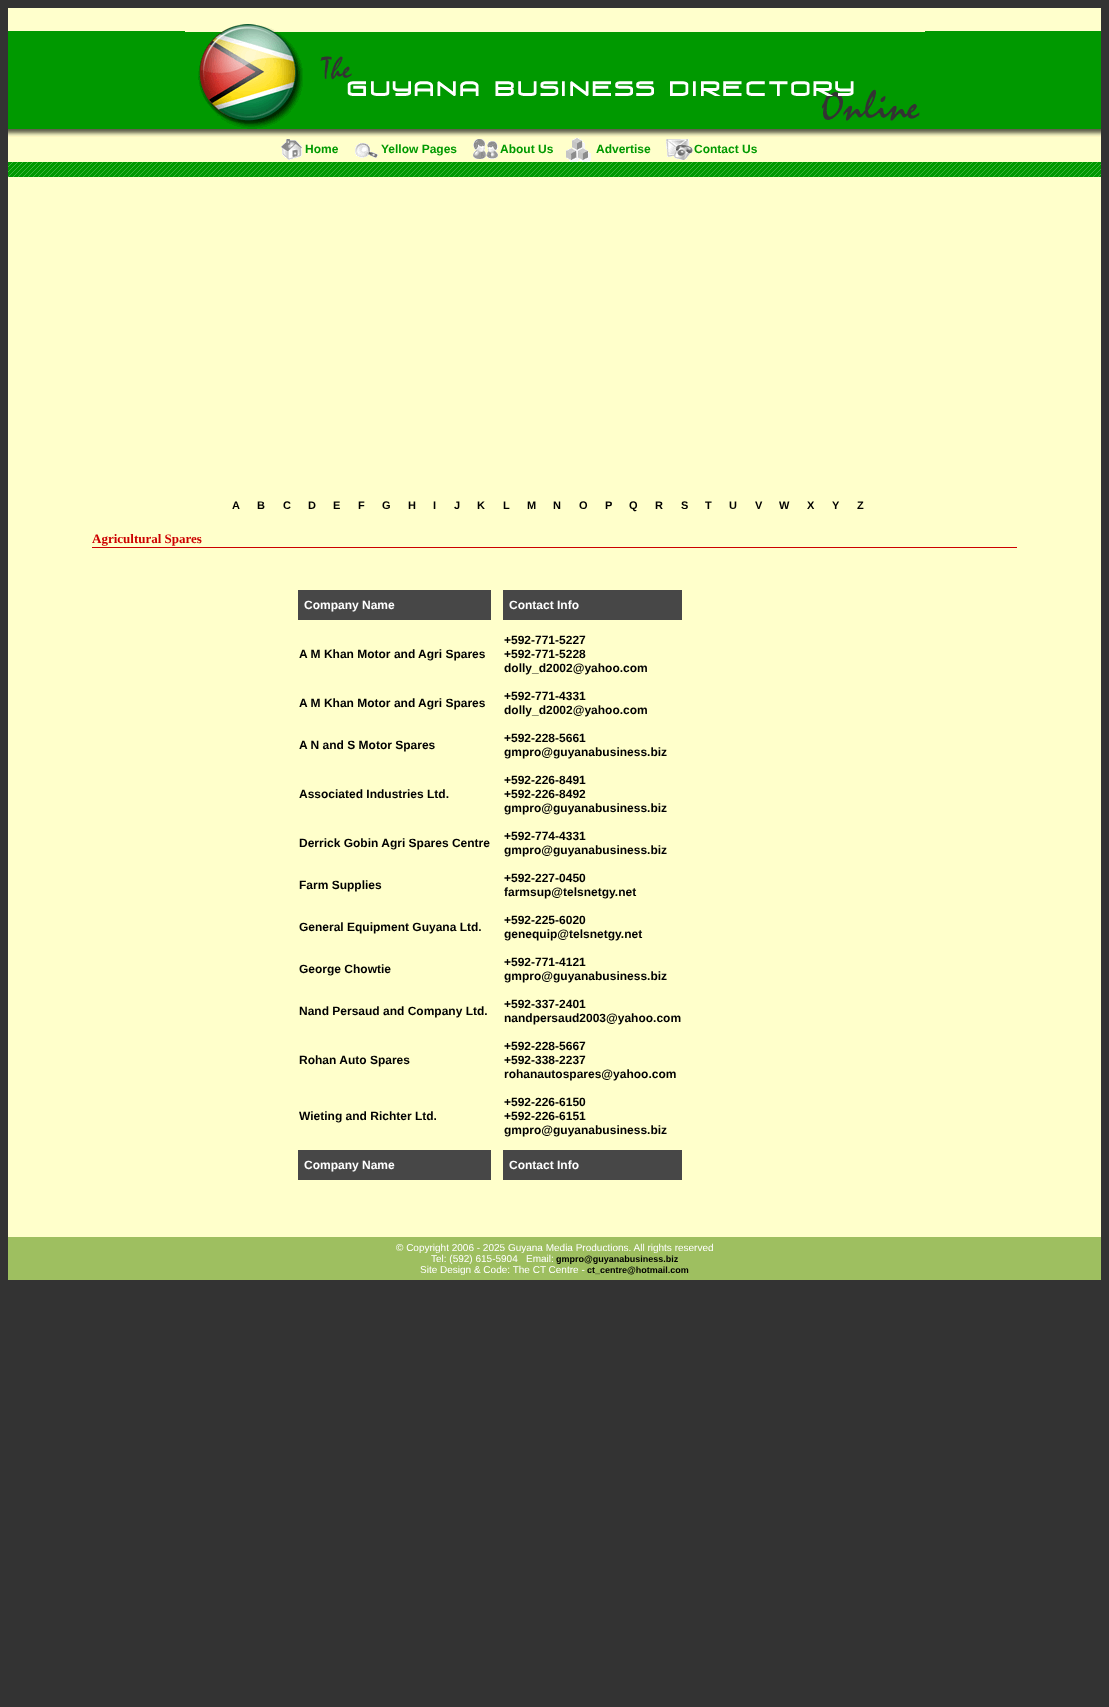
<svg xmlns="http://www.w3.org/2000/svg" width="1109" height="1707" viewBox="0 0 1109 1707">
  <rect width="100%" height="100%" fill="rgb(51,51,51)"/>
  <rect x="8" y="8" width="1093" height="23" fill="rgb(255,255,204)"/>
  <image x="223" y="24" width="53" height="7" href="pic1.png"/>
  <rect x="8" y="31" width="1093" height="44" fill="rgb(0,153,0)"/>
  <image x="185" y="31" width="740" height="44" href="pic2.png"/>
  <image x="8" y="75" width="1093" height="62" href="pic3.png"/>
  <image x="198" y="75" width="722" height="54" href="pic4.png"/>
  <rect x="8" y="137" width="1093" height="25" fill="rgb(255,255,203)"/>
  <image x="281" y="139" width="21" height="21" href="pic5.png"/>
  <text x="305" y="153" font-family="Liberation Sans" font-size="12" font-weight="bold" fill="rgb(0,153,0)">Home</text>
  <image x="355" y="143" width="23" height="15" href="pic6.png"/>
  <text x="381" y="153" font-family="Liberation Sans" font-size="12" font-weight="bold" fill="rgb(0,153,0)">Yellow Pages</text>
  <image x="473" y="139" width="25" height="20" href="pic7.png"/>
  <text x="500" y="153" font-family="Liberation Sans" font-size="12" font-weight="bold" fill="rgb(0,153,0)">About Us</text>
  <image x="566" y="138" width="25" height="24" href="pic8.png"/>
  <text x="596" y="153" font-family="Liberation Sans" font-size="12" font-weight="bold" fill="rgb(0,153,0)">Advertise</text>
  <image x="666" y="139" width="27" height="21" href="pic9.png"/>
  <text x="694" y="153" font-family="Liberation Sans" font-size="12" font-weight="bold" fill="rgb(0,153,0)">Contact Us</text>
  <image x="8" y="162" width="1093" height="15" href="pic10.png"/>
  <rect x="8" y="177" width="1093" height="1060" fill="rgb(255,255,203)"/>
  <g font-family="Liberation Sans" font-size="11" font-weight="bold" fill="rgb(0,0,0)">
    <text x="232" y="509">A</text>
    <text x="257" y="509">B</text>
    <text x="283" y="509">C</text>
    <text x="308" y="509">D</text>
    <text x="333" y="509">E</text>
    <text x="358" y="509">F</text>
    <text x="382" y="509">G</text>
    <text x="408" y="509">H</text>
    <text x="433" y="509">I</text>
    <text x="454" y="509">J</text>
    <text x="477" y="509">K</text>
    <text x="503" y="509">L</text>
    <text x="527" y="509">M</text>
    <text x="553" y="509">N</text>
    <text x="579" y="509">O</text>
    <text x="605" y="509">P</text>
    <text x="629" y="509">Q</text>
    <text x="655" y="509">R</text>
    <text x="681" y="509">S</text>
    <text x="705" y="509">T</text>
    <text x="729" y="509">U</text>
    <text x="755" y="509">V</text>
    <text x="779" y="509">W</text>
    <text x="807" y="509">X</text>
    <text x="832" y="509">Y</text>
    <text x="857" y="509">Z</text>
  </g>
  <rect x="92" y="547" width="925" height="1" fill="rgb(204,0,0)"/>
  <text x="92" y="543" font-family="Liberation Serif" font-size="13" font-weight="bold" fill="rgb(204,0,0)">Agricultural Spares</text>
  <rect x="298" y="590" width="193" height="30" fill="rgb(71,71,71)"/>
  <text x="304" y="609" font-family="Liberation Sans" font-size="12" font-weight="bold" fill="rgb(255,255,255)">Company Name</text>
  <rect x="503" y="590" width="179" height="30" fill="rgb(71,71,71)"/>
  <text x="509" y="609" font-family="Liberation Sans" font-size="12" font-weight="bold" fill="rgb(255,255,255)">Contact Info</text>
  <g font-family="Liberation Sans" font-size="12" font-weight="bold" fill="rgb(0,0,0)">
    <text x="299" y="658">A M Khan Motor and Agri Spares</text>
    <text>
      <tspan x="504" y="644">+592-771-5227</tspan>
      <tspan x="504" y="658">+592-771-5228</tspan>
      <tspan x="504" y="672">dolly_d2002@yahoo.com</tspan>
    </text>
    <text x="299" y="707">A M Khan Motor and Agri Spares</text>
    <text>
      <tspan x="504" y="700">+592-771-4331</tspan>
      <tspan x="504" y="714">dolly_d2002@yahoo.com</tspan>
    </text>
    <text x="299" y="749">A N and S Motor Spares</text>
    <text>
      <tspan x="504" y="742">+592-228-5661</tspan>
      <tspan x="504" y="756">gmpro@guyanabusiness.biz</tspan>
    </text>
    <text x="299" y="798">Associated Industries Ltd.</text>
    <text>
      <tspan x="504" y="784">+592-226-8491</tspan>
      <tspan x="504" y="798">+592-226-8492</tspan>
      <tspan x="504" y="812">gmpro@guyanabusiness.biz</tspan>
    </text>
    <text x="299" y="847">Derrick Gobin Agri Spares Centre</text>
    <text>
      <tspan x="504" y="840">+592-774-4331</tspan>
      <tspan x="504" y="854">gmpro@guyanabusiness.biz</tspan>
    </text>
    <text x="299" y="889">Farm Supplies</text>
    <text>
      <tspan x="504" y="882">+592-227-0450</tspan>
      <tspan x="504" y="896">farmsup@telsnetgy.net</tspan>
    </text>
    <text x="299" y="931">General Equipment Guyana Ltd.</text>
    <text>
      <tspan x="504" y="924">+592-225-6020</tspan>
      <tspan x="504" y="938">genequip@telsnetgy.net</tspan>
    </text>
    <text x="299" y="973">George Chowtie</text>
    <text>
      <tspan x="504" y="966">+592-771-4121</tspan>
      <tspan x="504" y="980">gmpro@guyanabusiness.biz</tspan>
    </text>
    <text x="299" y="1015">Nand Persaud and Company Ltd.</text>
    <text>
      <tspan x="504" y="1008">+592-337-2401</tspan>
      <tspan x="504" y="1022">nandpersaud2003@yahoo.com</tspan>
    </text>
    <text x="299" y="1064">Rohan Auto Spares</text>
    <text>
      <tspan x="504" y="1050">+592-228-5667</tspan>
      <tspan x="504" y="1064">+592-338-2237</tspan>
      <tspan x="504" y="1078">rohanautospares@yahoo.com</tspan>
    </text>
    <text x="299" y="1120">Wieting and Richter Ltd.</text>
    <text>
      <tspan x="504" y="1106">+592-226-6150</tspan>
      <tspan x="504" y="1120">+592-226-6151</tspan>
      <tspan x="504" y="1134">gmpro@guyanabusiness.biz</tspan>
    </text>
  </g>
  <rect x="298" y="1150" width="193" height="30" fill="rgb(71,71,71)"/>
  <text x="304" y="1169" font-family="Liberation Sans" font-size="12" font-weight="bold" fill="rgb(255,255,255)">Company Name</text>
  <rect x="503" y="1150" width="179" height="30" fill="rgb(71,71,71)"/>
  <text x="509" y="1169" font-family="Liberation Sans" font-size="12" font-weight="bold" fill="rgb(255,255,255)">Contact Info</text>
  <rect x="8" y="1237" width="1093" height="43" fill="rgb(158,191,96)"/>
  <g font-family="Liberation Sans" font-size="10" fill="rgb(255,255,255)">
    <text x="396" y="1251">© Copyright 2006 - 2025 Guyana Media Productions. All rights reserved</text>
    <text x="431" y="1262" xml:space="preserve">Tel: (592) 615-5904   Email:</text>
  </g>
  <text x="556" y="1262" font-family="Liberation Sans" font-size="9" font-weight="bold" fill="rgb(0,0,0)">gmpro@guyanabusiness.biz</text>
  <text x="420" y="1273" font-family="Liberation Sans" font-size="10" fill="rgb(255,255,255)">Site Design &amp; Code: The CT Centre -</text>
  <text x="587" y="1273" font-family="Liberation Sans" font-size="9" font-weight="bold" fill="rgb(0,0,0)">ct_centre@hotmail.com</text>
</svg>
